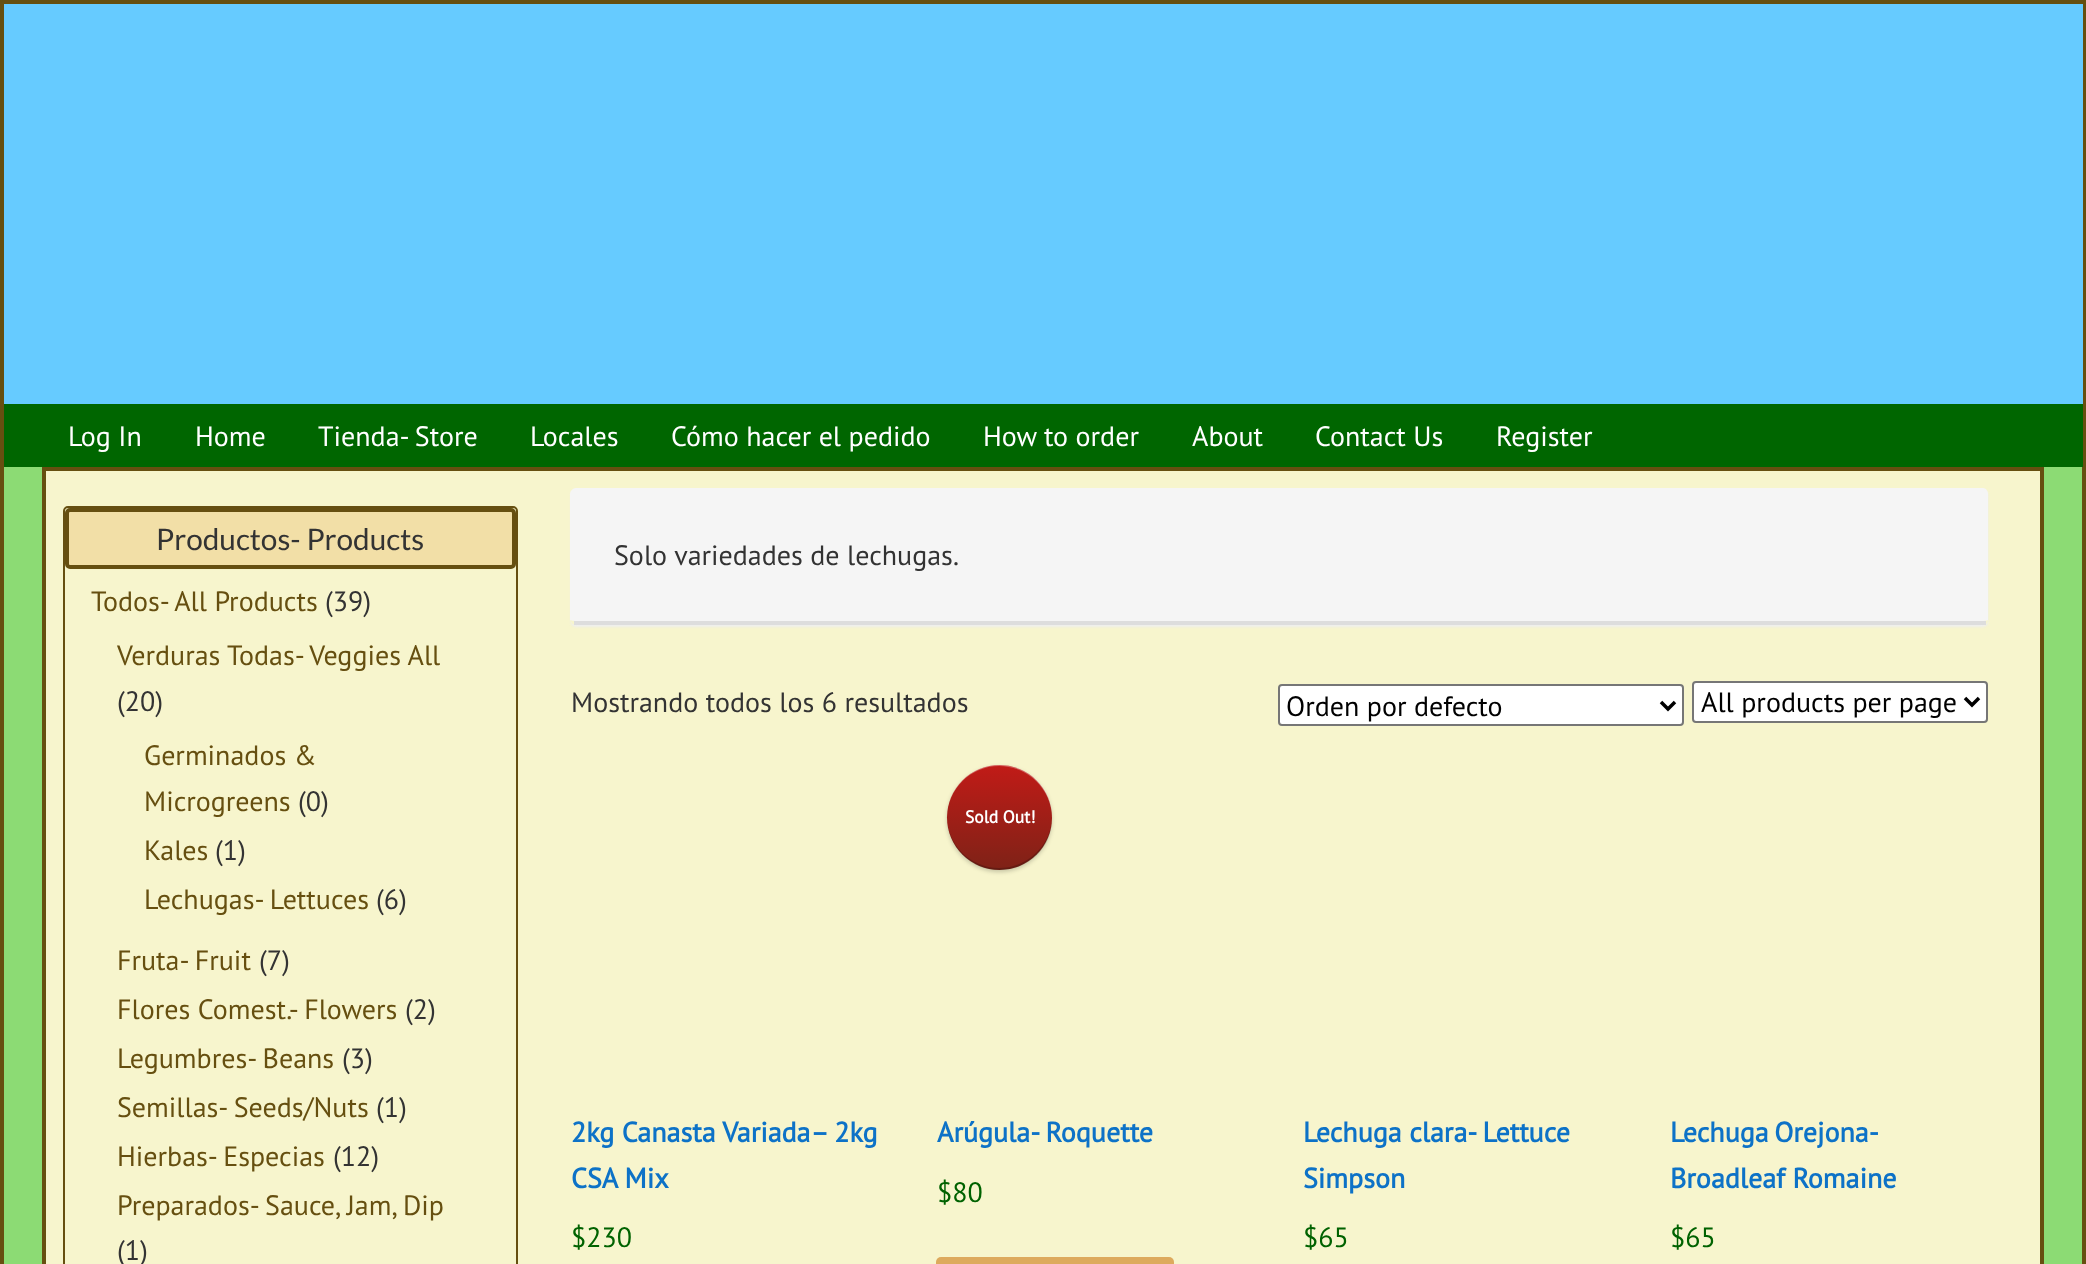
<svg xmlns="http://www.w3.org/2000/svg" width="2086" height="1264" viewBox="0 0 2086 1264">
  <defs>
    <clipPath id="clip1"><path d="M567 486H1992V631H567ZM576 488H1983C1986 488 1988 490 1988 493V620C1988 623 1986 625 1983 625H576C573 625 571 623 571 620V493C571 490 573 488 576 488Z" clip-rule="evenodd"/></clipPath>
    <linearGradient id="g1" gradientUnits="userSpaceOnUse" x1="999" y1="765" x2="999" y2="870"><stop offset="0" stop-color="rgb(193,27,23)"/><stop offset="1" stop-color="rgb(126,34,23)"/></linearGradient>
  </defs>
  <rect width="100%" height="100%" fill="rgb(140,219,116)"/>
  <rect x="2" y="2" width="2082" height="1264" fill="none" stroke="rgb(102,79,16)" stroke-width="4"/>
  <rect x="4" y="4" width="2079" height="400" fill="rgb(102,203,255)"/>
  <rect x="4" y="404" width="2079" height="63" fill="rgb(0,102,0)"/>
  <g font-family="PT Sans" font-size="28" fill="rgb(255,255,255)">
    <text x="68" y="446">Log In</text>
    <text x="195" y="446">Home</text>
    <text x="318" y="446">Tienda- Store</text>
    <text x="530" y="446">Locales</text>
    <text x="671" y="446">Cómo hacer el pedido</text>
    <text x="983" y="446">How to order</text>
    <text x="1192" y="446">About</text>
    <text x="1315" y="446">Contact Us</text>
    <text x="1496" y="446">Register</text>
  </g>
  <rect x="44" y="469" width="1998" height="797" fill="rgb(247,245,205)" stroke="rgb(102,79,16)" stroke-width="4"/>
  <rect x="64" y="507" width="453" height="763" rx="4" fill="none" stroke="rgb(102,79,16)" stroke-width="2"/>
  <rect x="67" y="510" width="447" height="57" rx="3" fill="rgb(242,223,167)" stroke="rgb(102,79,16)" stroke-width="4"/>
  <text x="156" y="550" font-family="Lato" font-size="29.75" fill="rgb(51,51,51)">Productos- Products</text>
  <text x="91" y="611" font-family="PT Sans" font-size="28" fill="rgb(102,79,16)">Todos- All Products</text>
  <text x="325" y="611" font-family="PT Sans" font-size="28" fill="rgb(51,51,51)">(39)</text>
  <text x="117" y="665" font-family="PT Sans" font-size="28" fill="rgb(102,79,16)">Verduras Todas- Veggies All</text>
  <text x="117" y="711" font-family="PT Sans" font-size="28" fill="rgb(51,51,51)">(20)</text>
  <g font-family="PT Sans" font-size="28" fill="rgb(102,79,16)">
    <text>
      <tspan x="144" y="765">Germinados &amp;</tspan>
      <tspan x="144" y="811">Microgreens</tspan>
    </text>
  </g>
  <text x="298" y="811" font-family="PT Sans" font-size="28" fill="rgb(51,51,51)">(0)</text>
  <text x="144" y="860" font-family="PT Sans" font-size="28" fill="rgb(102,79,16)">Kales</text>
  <text x="215" y="860" font-family="PT Sans" font-size="28" fill="rgb(51,51,51)">(1)</text>
  <text x="144" y="909" font-family="PT Sans" font-size="28" fill="rgb(102,79,16)">Lechugas- Lettuces</text>
  <text x="376" y="909" font-family="PT Sans" font-size="28" fill="rgb(51,51,51)">(6)</text>
  <text x="117" y="970" font-family="PT Sans" font-size="28" fill="rgb(102,79,16)">Fruta- Fruit</text>
  <text x="259" y="970" font-family="PT Sans" font-size="28" fill="rgb(51,51,51)">(7)</text>
  <text x="117" y="1019" font-family="PT Sans" font-size="28" fill="rgb(102,79,16)">Flores Comest.- Flowers</text>
  <text x="405" y="1019" font-family="PT Sans" font-size="28" fill="rgb(51,51,51)">(2)</text>
  <text x="117" y="1068" font-family="PT Sans" font-size="28" fill="rgb(102,79,16)">Legumbres- Beans</text>
  <text x="342" y="1068" font-family="PT Sans" font-size="28" fill="rgb(51,51,51)">(3)</text>
  <text x="117" y="1117" font-family="PT Sans" font-size="28" fill="rgb(102,79,16)">Semillas- Seeds/Nuts</text>
  <text x="376" y="1117" font-family="PT Sans" font-size="28" fill="rgb(51,51,51)">(1)</text>
  <text x="117" y="1166" font-family="PT Sans" font-size="28" fill="rgb(102,79,16)">Hierbas- Especias</text>
  <text x="333" y="1166" font-family="PT Sans" font-size="28" fill="rgb(51,51,51)">(12)</text>
  <text x="117" y="1215" font-family="PT Sans" font-size="28" fill="rgb(102,79,16)">Preparados- Sauce, Jam, Dip</text>
  <text x="117" y="1260" font-family="PT Sans" font-size="28" fill="rgb(51,51,51)">(1)</text>
  <g clip-path="url(#clip1)">
    <rect x="571" y="490" width="1417" height="137" rx="5" fill="rgb(238,238,238)" filter="blur(1px)"/>
  </g>
  <path d="M576 488H1983C1986 488 1988 491 1988 494V620C1988 620 1986 621 1983 621H576C573 621 570 620 570 620V494C570 491 573 488 576 488Z" fill="rgb(245,245,245)"/>
  <rect x="574" y="621" width="1412" height="4" fill="rgb(221,221,221)"/>
  <g font-family="PT Sans" font-size="28" fill="rgb(51,51,51)">
    <text x="614" y="565">Solo variedades de lechugas.</text>
    <text x="571" y="712">Mostrando todos los 6 resultados</text>
  </g>
  <rect x="1279" y="685" width="404" height="40" rx="3" fill="rgb(255,255,255)" stroke="rgb(118,118,118)" stroke-width="2"/>
  <path d="M1661 702L1668 709L1675 702" fill="none" stroke="rgb(0,0,0)" stroke-width="3.5"/>
  <text x="1286" y="716" font-family="PT Sans" font-size="28" fill="rgb(0,0,0)">Orden por defecto</text>
  <rect x="1693" y="682" width="294" height="40" rx="3" fill="rgb(255,255,255)" stroke="rgb(118,118,118)" stroke-width="2"/>
  <path d="M1965 698L1972 705L1979 698" fill="none" stroke="rgb(0,0,0)" stroke-width="3.5"/>
  <text x="1701" y="712" font-family="PT Sans" font-size="28" fill="rgb(0,0,0)">All products per page</text>
  <g font-family="PT Sans" font-size="28" font-weight="bold" fill="rgb(13,114,199)">
    <text>
      <tspan x="571" y="1142">2kg Canasta Variada– 2kg</tspan>
      <tspan x="571" y="1188">CSA Mix</tspan>
    </text>
  </g>
  <text x="571" y="1247" font-family="PT Sans" font-size="28" fill="rgb(0,98,0)">$230</text>
  <rect x="947" y="767" width="105" height="105" rx="52.5" fill="rgba(0,0,0,0.2)" filter="blur(2px)"/>
  <circle cx="999.5" cy="817.5" r="52.5" fill="url(#g1)"/>
  <path d="M947 817C947 827 950 838 956 847C985 890 1053 869 1052 817C1052 844 1028 868 999 868C970 868 947 844 947 817Z" fill="rgba(0,0,0,0.2)"/>
  <path d="M999 766C1028 766 1052 790 1052 818C1053 766 985 745 956 788C950 797 947 808 947 818C947 790 970 766 999 766Z" fill="rgba(255,255,255,0.3)"/>
  <text x="965" y="823" font-family="PT Sans" font-size="17.5" font-weight="bold" fill="rgb(255,255,255)">Sold Out!</text>
  <text x="937" y="1142" font-family="PT Sans" font-size="28" font-weight="bold" fill="rgb(13,114,199)">Arúgula- Roquette</text>
  <text x="937" y="1202" font-family="PT Sans" font-size="28" fill="rgb(0,98,0)">$80</text>
  <rect x="936" y="1257" width="238" height="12" rx="5" fill="rgb(221,170,93)"/>
  <g font-family="PT Sans" font-size="28" font-weight="bold" fill="rgb(13,114,199)">
    <text>
      <tspan x="1303" y="1142">Lechuga clara- Lettuce</tspan>
      <tspan x="1303" y="1188">Simpson</tspan>
    </text>
  </g>
  <text x="1303" y="1247" font-family="PT Sans" font-size="28" fill="rgb(0,98,0)">$65</text>
  <g font-family="PT Sans" font-size="28" font-weight="bold" fill="rgb(13,114,199)">
    <text>
      <tspan x="1670" y="1142" word-spacing="-2">Lechuga Orejona-</tspan>
      <tspan x="1670" y="1188">Broadleaf Romaine</tspan>
    </text>
  </g>
  <text x="1670" y="1247" font-family="PT Sans" font-size="28" fill="rgb(0,98,0)">$65</text>
</svg>
